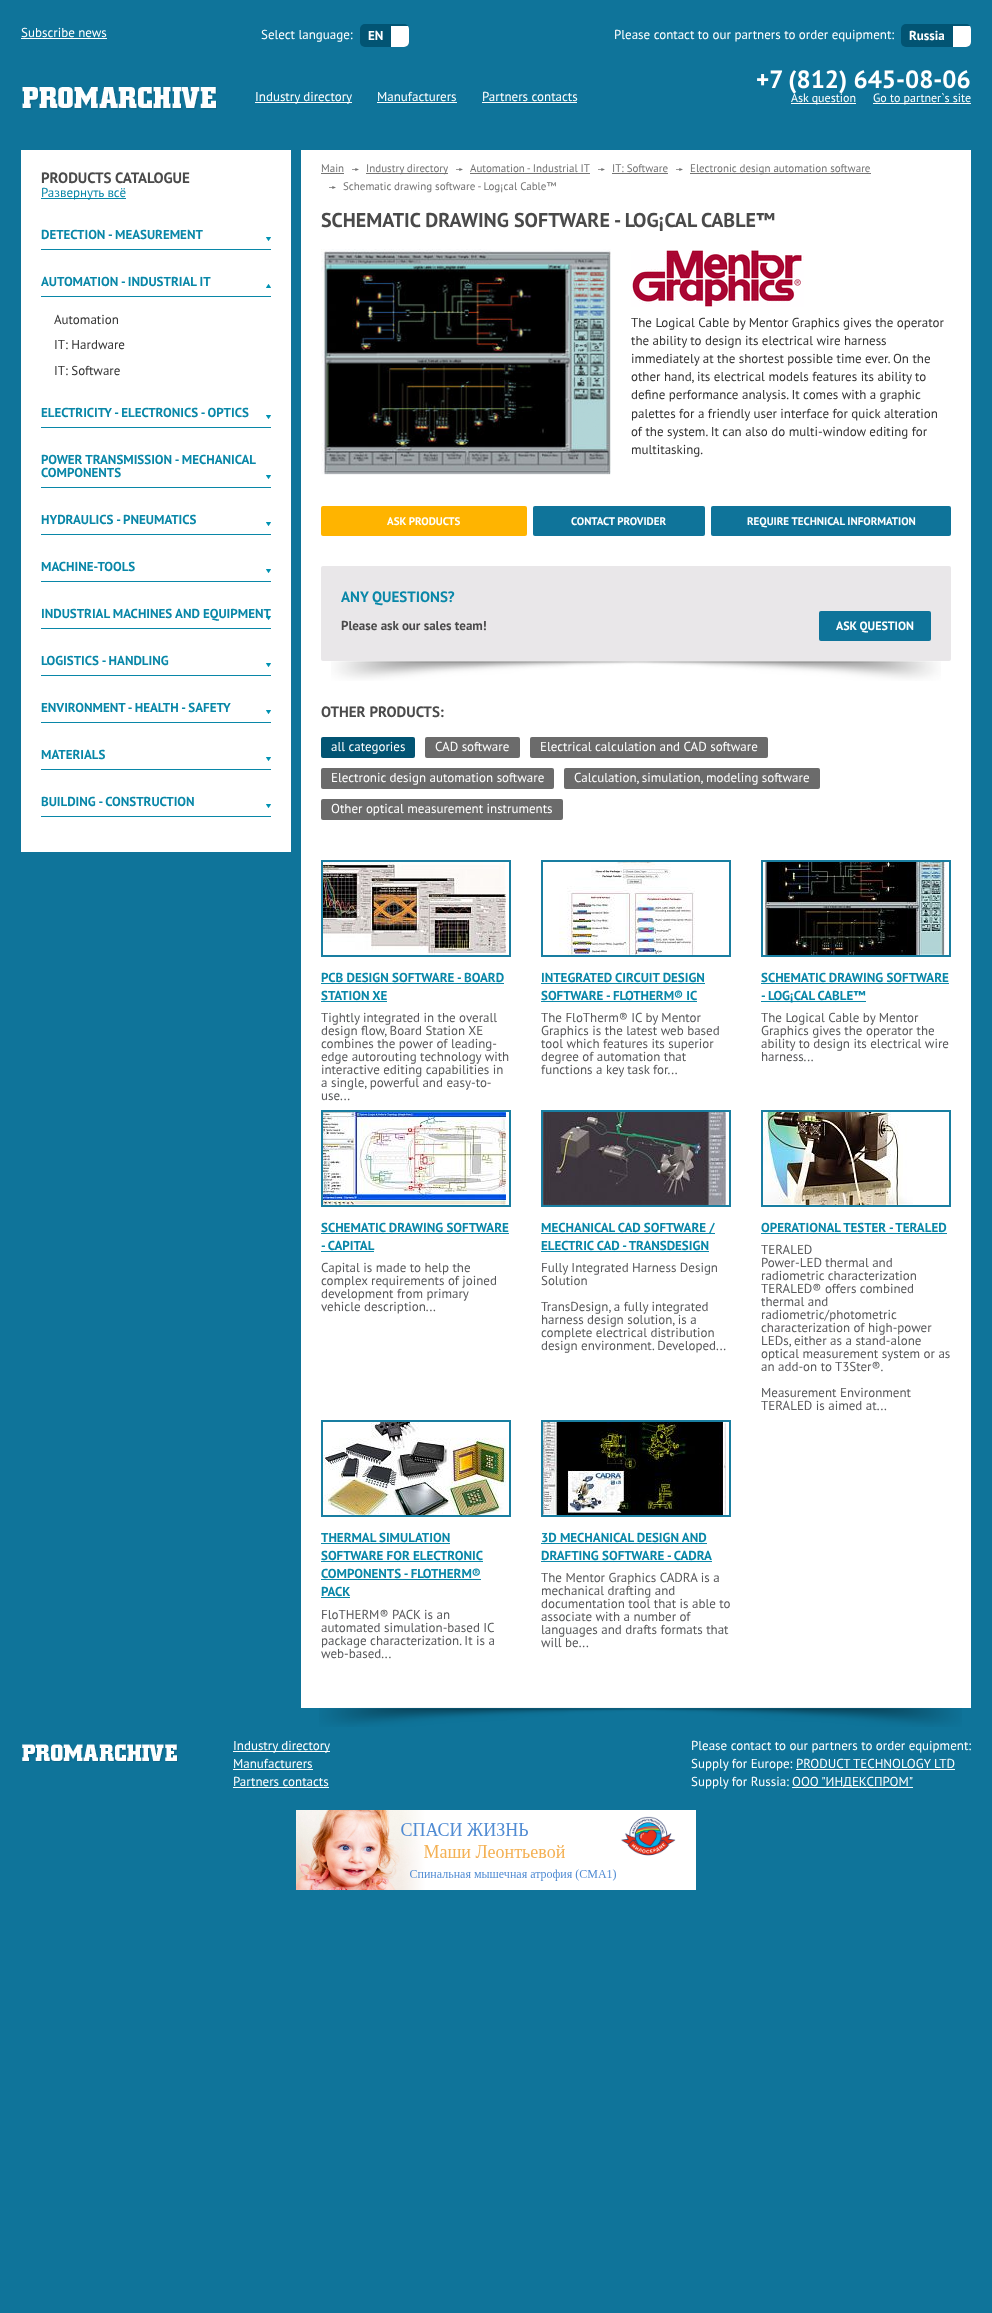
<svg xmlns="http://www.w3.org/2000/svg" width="992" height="2313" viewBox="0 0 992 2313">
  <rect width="100%" height="100%" fill="rgb(15,116,154)"/>
  <text x="21" y="37" font-family="PT Sans" font-size="13" fill="rgb(255,255,255)">Subscribe news</text>
  <rect x="21" y="38" width="86" height="1" fill="rgb(255,255,255)"/>
  <text x="261" y="39" font-family="PT Sans" font-size="13" fill="rgb(255,255,255)">Select language:</text>
  <rect x="360" y="24" width="49" height="23" rx="5" fill="rgb(2,84,115)"/>
  <text x="368" y="40" font-family="PT Sans" font-size="13" font-weight="bold" fill="rgb(255,255,255)">EN</text>
  <image x="391" y="26" width="18" height="21" href="pic1.png"/>
  <text x="614" y="39" font-family="PT Sans" font-size="13" fill="rgb(255,255,255)">Please contact to our partners to order equipment:</text>
  <rect x="901" y="24" width="70" height="23" rx="5" fill="rgb(2,84,115)"/>
  <text x="909" y="40" font-family="PT Sans" font-size="13" font-weight="bold" fill="rgb(255,255,255)">Russia</text>
  <image x="953" y="26" width="18" height="21" href="pic1.png"/>
  <image x="22" y="87" width="195" height="23" href="pic2.png"/>
  <rect x="255" y="102" width="97" height="1" fill="rgb(255,255,255)"/>
  <g font-family="PT Sans" font-size="13" fill="rgb(255,255,255)">
    <text x="255" y="101">Industry directory</text>
    <text x="377" y="101">Manufacturers</text>
  </g>
  <rect x="377" y="102" width="80" height="1" fill="rgb(255,255,255)"/>
  <text x="482" y="101" font-family="PT Sans" font-size="13" fill="rgb(255,255,255)">Partners contacts</text>
  <rect x="482" y="102" width="95" height="1" fill="rgb(255,255,255)"/>
  <text x="756" y="88" font-family="PT Sans" font-size="25" font-weight="bold" fill="rgb(255,255,255)">+7 (812) 645-08-06</text>
  <rect x="791" y="103" width="65" height="1" fill="rgb(255,255,255)"/>
  <text x="791" y="102" font-family="PT Sans" font-size="12" fill="rgb(255,255,255)">Ask question</text>
  <rect x="873" y="103" width="98" height="1" fill="rgb(255,255,255)"/>
  <text x="873" y="102" font-family="PT Sans" font-size="12" fill="rgb(255,255,255)">Go to partner`s site</text>
  <rect x="21" y="150" width="270" height="702" fill="rgb(255,255,255)"/>
  <text x="41" y="183" font-family="PT Sans" font-size="15" font-weight="bold" fill="rgb(74,74,74)">PRODUCTS CATALOGUE</text>
  <rect x="41" y="198" width="85" height="1" fill="rgb(9,135,168)"/>
  <text x="41" y="197" font-family="PT Sans" font-size="13" fill="rgb(9,135,168)">Развернуть всё</text>
  <rect x="41" y="249" width="230" height="1" fill="rgb(9,135,168)"/>
  <text x="41" y="239" font-family="PT Sans" font-size="13" font-weight="bold" fill="rgb(9,135,168)">DETECTION - MEASUREMENT</text>
  <image x="266" y="237" width="5" height="4" href="pic3.png"/>
  <rect x="41" y="296" width="230" height="1" fill="rgb(9,135,168)"/>
  <text x="41" y="286" font-family="PT Sans" font-size="13" font-weight="bold" fill="rgb(9,135,168)">AUTOMATION - INDUSTRIAL IT</text>
  <image x="266" y="284" width="5" height="4" href="pic4.png"/>
  <g font-family="PT Sans" font-size="13" fill="rgb(51,51,51)">
    <text>
      <tspan x="54" y="324">Automation</tspan>
      <tspan x="54" y="349">IT: Hardware</tspan>
    </text>
    <text x="54" y="375">IT: Software</text>
  </g>
  <rect x="41" y="427" width="230" height="1" fill="rgb(9,135,168)"/>
  <text x="41" y="417" font-family="PT Sans" font-size="13" font-weight="bold" fill="rgb(9,135,168)">ELECTRICITY - ELECTRONICS - OPTICS</text>
  <image x="266" y="415" width="5" height="4" href="pic3.png"/>
  <rect x="41" y="487" width="230" height="1" fill="rgb(9,135,168)"/>
  <g font-family="PT Sans" font-size="13" font-weight="bold" fill="rgb(9,135,168)">
    <text>
      <tspan x="41" y="464">POWER TRANSMISSION - MECHANICAL</tspan>
      <tspan x="41" y="477">COMPONENTS</tspan>
    </text>
  </g>
  <image x="266" y="475" width="5" height="4" href="pic3.png"/>
  <rect x="41" y="534" width="230" height="1" fill="rgb(9,135,168)"/>
  <text x="41" y="524" font-family="PT Sans" font-size="13" font-weight="bold" fill="rgb(9,135,168)">HYDRAULICS - PNEUMATICS</text>
  <image x="266" y="522" width="5" height="4" href="pic3.png"/>
  <rect x="41" y="581" width="230" height="1" fill="rgb(9,135,168)"/>
  <text x="41" y="571" font-family="PT Sans" font-size="13" font-weight="bold" fill="rgb(9,135,168)">MACHINE-TOOLS</text>
  <image x="266" y="569" width="5" height="4" href="pic3.png"/>
  <rect x="41" y="628" width="230" height="1" fill="rgb(9,135,168)"/>
  <text x="41" y="618" font-family="PT Sans" font-size="13" font-weight="bold" fill="rgb(9,135,168)">INDUSTRIAL MACHINES AND EQUIPMENT</text>
  <image x="266" y="616" width="5" height="4" href="pic5.png"/>
  <rect x="41" y="675" width="230" height="1" fill="rgb(9,135,168)"/>
  <text x="41" y="665" font-family="PT Sans" font-size="13" font-weight="bold" fill="rgb(9,135,168)">LOGISTICS - HANDLING</text>
  <image x="266" y="663" width="5" height="4" href="pic3.png"/>
  <rect x="41" y="722" width="230" height="1" fill="rgb(9,135,168)"/>
  <text x="41" y="712" font-family="PT Sans" font-size="13" font-weight="bold" fill="rgb(9,135,168)">ENVIRONMENT - HEALTH - SAFETY</text>
  <image x="266" y="710" width="5" height="4" href="pic3.png"/>
  <rect x="41" y="769" width="230" height="1" fill="rgb(9,135,168)"/>
  <text x="41" y="759" font-family="PT Sans" font-size="13" font-weight="bold" fill="rgb(9,135,168)">MATERIALS</text>
  <image x="266" y="757" width="5" height="4" href="pic3.png"/>
  <rect x="41" y="816" width="230" height="1" fill="rgb(9,135,168)"/>
  <text x="41" y="806" font-family="PT Sans" font-size="13" font-weight="bold" fill="rgb(9,135,168)">BUILDING - CONSTRUCTION</text>
  <image x="266" y="804" width="5" height="4" href="pic3.png"/>
  <rect x="301" y="150" width="670" height="1558" fill="rgb(255,255,255)"/>
  <text x="321" y="172" font-family="PT Sans" font-size="11" fill="rgb(115,115,115)">Main</text>
  <rect x="321" y="173" width="23" height="1" fill="rgb(115,115,115)"/>
  <image x="352" y="168" width="7" height="3" href="pic6.png"/>
  <rect x="366" y="173" width="82" height="1" fill="rgb(115,115,115)"/>
  <text x="366" y="172" font-family="PT Sans" font-size="11" fill="rgb(115,115,115)">Industry directory</text>
  <image x="456" y="168" width="7" height="3" href="pic6.png"/>
  <text x="470" y="172" font-family="PT Sans" font-size="11" fill="rgb(115,115,115)">Automation - Industrial IT</text>
  <rect x="470" y="173" width="120" height="1" fill="rgb(115,115,115)"/>
  <image x="598" y="168" width="7" height="3" href="pic6.png"/>
  <text x="612" y="172" font-family="PT Sans" font-size="11" fill="rgb(115,115,115)">IT: Software</text>
  <rect x="612" y="173" width="56" height="1" fill="rgb(115,115,115)"/>
  <image x="676" y="168" width="7" height="3" href="pic6.png"/>
  <rect x="690" y="173" width="181" height="1" fill="rgb(115,115,115)"/>
  <text x="690" y="172" font-family="PT Sans" font-size="11" fill="rgb(115,115,115)">Electronic design automation software</text>
  <image x="329" y="186" width="7" height="3" href="pic6.png"/>
  <text x="343" y="190" font-family="PT Sans" font-size="11" fill="rgb(115,115,115)">Schematic drawing software - Log¡cal Cable™</text>
  <text x="321" y="227" font-family="PT Sans" font-size="20" font-weight="bold" fill="rgb(74,74,74)">SCHEMATIC DRAWING SOFTWARE - LOG¡CAL CABLE™</text>
  <image x="321" y="249" width="290" height="226" href="pic7.png"/>
  <image x="631" y="250" width="173" height="57" href="pic8.png"/>
  <g font-family="PT Sans" font-size="13" fill="rgb(51,51,51)">
    <text>
      <tspan x="631" y="327">The Logical Cable by Mentor Graphics gives the operator</tspan>
      <tspan x="631" y="345">the ability to design its electrical wire harness</tspan>
      <tspan x="631" y="363">immediately at the shortest possible time ever. On the</tspan>
      <tspan x="631" y="381">other hand, its electrical models features its ability to</tspan>
      <tspan x="631" y="399">define performance analysis. It comes with a graphic</tspan>
      <tspan x="631" y="418">palettes for a friendly user interface for quick alteration</tspan>
      <tspan x="631" y="436">of the system. It can also do multi-window editing for</tspan>
      <tspan x="631" y="454">multitasking.</tspan>
    </text>
  </g>
  <rect x="321" y="506" width="206" height="30" rx="2" fill="rgb(255,180,0)"/>
  <text x="387" y="525" font-family="PT Sans" font-size="11" font-weight="bold" fill="rgb(255,255,255)">ASK PRODUCTS</text>
  <rect x="533" y="506" width="172" height="30" rx="2" fill="rgb(15,116,154)"/>
  <text x="571" y="525" font-family="PT Sans" font-size="11" font-weight="bold" fill="rgb(255,255,255)">CONTACT PROVIDER</text>
  <rect x="711" y="506" width="240" height="30" rx="2" fill="rgb(15,116,154)"/>
  <text x="747" y="525" font-family="PT Sans" font-size="11" font-weight="bold" fill="rgb(255,255,255)">REQUIRE TECHNICAL INFORMATION</text>
  <rect x="321" y="566" width="630" height="95" rx="2" fill="rgb(233,231,233)"/>
  <text x="341" y="602" font-family="PT Sans" font-size="15" font-weight="bold" fill="rgb(9,135,168)">ANY QUESTIONS?</text>
  <text x="341" y="630" font-family="PT Sans" font-size="13" font-weight="bold" fill="rgb(74,74,74)">Please ask our sales team!</text>
  <rect x="819" y="611" width="112" height="30" rx="2" fill="rgb(15,116,154)"/>
  <text x="836" y="630" font-family="PT Sans" font-size="12" font-weight="bold" fill="rgb(255,255,255)">ASK QUESTION</text>
  <image x="331" y="661" width="610" height="20" href="pic9.png"/>
  <text x="321" y="717" font-family="PT Sans" font-size="15" font-weight="bold" fill="rgb(74,74,74)">OTHER PRODUCTS:</text>
  <rect x="321" y="737" width="94" height="21" rx="2" fill="rgb(2,84,115)"/>
  <text x="331" y="751" font-family="PT Sans" font-size="13" fill="rgb(255,255,255)">all categories</text>
  <rect x="425" y="737" width="95" height="21" rx="2" fill="rgb(107,107,107)"/>
  <text x="435" y="751" font-family="PT Sans" font-size="13" fill="rgb(255,255,255)">CAD software</text>
  <rect x="530" y="737" width="238" height="21" rx="2" fill="rgb(107,107,107)"/>
  <text x="540" y="751" font-family="PT Sans" font-size="13" fill="rgb(255,255,255)">Electrical calculation and CAD software</text>
  <rect x="321" y="768" width="233" height="21" rx="2" fill="rgb(107,107,107)"/>
  <text x="331" y="782" font-family="PT Sans" font-size="13" fill="rgb(255,255,255)">Electronic design automation software</text>
  <rect x="564" y="768" width="256" height="21" rx="2" fill="rgb(107,107,107)"/>
  <text x="574" y="782" font-family="PT Sans" font-size="13" fill="rgb(255,255,255)">Calculation, simulation, modeling software</text>
  <rect x="321" y="799" width="242" height="21" rx="2" fill="rgb(107,107,107)"/>
  <text x="331" y="813" font-family="PT Sans" font-size="13" fill="rgb(255,255,255)">Other optical measurement instruments</text>
  <rect x="322" y="861" width="188" height="95" fill="none" stroke="rgb(25,126,161)" stroke-width="2"/>
  <image x="323" y="862" width="183" height="93" href="pic10.png"/>
  <text x="321" y="982" font-family="PT Sans" font-size="13" font-weight="bold" fill="rgb(9,135,168)">PCB DESIGN SOFTWARE - BOARD</text>
  <rect x="321" y="983" width="183" height="1" fill="rgb(9,135,168)"/>
  <text x="321" y="1000" font-family="PT Sans" font-size="13" font-weight="bold" fill="rgb(9,135,168)">STATION XE</text>
  <rect x="321" y="1001" width="66" height="1" fill="rgb(9,135,168)"/>
  <g font-family="PT Sans" font-size="13" fill="rgb(88,89,91)">
    <text>
      <tspan x="321" y="1022">Tightly integrated in the overall</tspan>
      <tspan x="321" y="1035">design flow, Board Station XE</tspan>
      <tspan x="321" y="1048">combines the power of leading-</tspan>
      <tspan x="321" y="1061">edge autorouting technology with</tspan>
      <tspan x="321" y="1074">interactive editing capabilities in</tspan>
      <tspan x="321" y="1087">a single, powerful and easy-to-</tspan>
      <tspan x="321" y="1100">use...</tspan>
    </text>
  </g>
  <rect x="542" y="861" width="188" height="95" fill="none" stroke="rgb(25,126,161)" stroke-width="2"/>
  <image x="559" y="862" width="136" height="93" href="pic11.png"/>
  <text x="541" y="982" font-family="PT Sans" font-size="13" font-weight="bold" fill="rgb(9,135,168)">INTEGRATED CIRCUIT DESIGN</text>
  <rect x="541" y="983" width="164" height="1" fill="rgb(9,135,168)"/>
  <text x="541" y="1000" font-family="PT Sans" font-size="13" font-weight="bold" fill="rgb(9,135,168)">SOFTWARE - FLOTHERM® IC</text>
  <rect x="541" y="1001" width="156" height="1" fill="rgb(9,135,168)"/>
  <g font-family="PT Sans" font-size="13" fill="rgb(88,89,91)">
    <text>
      <tspan x="541" y="1022">The FloTherm® IC by Mentor</tspan>
      <tspan x="541" y="1035">Graphics is the latest web based</tspan>
      <tspan x="541" y="1048">tool which features its superior</tspan>
      <tspan x="541" y="1061">degree of automation that</tspan>
      <tspan x="541" y="1074">functions a key task for...</tspan>
    </text>
  </g>
  <rect x="762" y="861" width="188" height="95" fill="none" stroke="rgb(25,126,161)" stroke-width="2"/>
  <image x="763" y="862" width="183" height="93" href="pic12.png"/>
  <text x="761" y="982" font-family="PT Sans" font-size="13" font-weight="bold" fill="rgb(9,135,168)">SCHEMATIC DRAWING SOFTWARE</text>
  <rect x="761" y="983" width="188" height="1" fill="rgb(9,135,168)"/>
  <rect x="761" y="1001" width="105" height="1" fill="rgb(9,135,168)"/>
  <text x="761" y="1000" font-family="PT Sans" font-size="13" font-weight="bold" fill="rgb(9,135,168)">- LOG¡CAL CABLE™</text>
  <g font-family="PT Sans" font-size="13" fill="rgb(88,89,91)">
    <text>
      <tspan x="761" y="1022">The Logical Cable by Mentor</tspan>
      <tspan x="761" y="1035">Graphics gives the operator the</tspan>
      <tspan x="761" y="1048">ability to design its electrical wire</tspan>
      <tspan x="761" y="1061">harness...</tspan>
    </text>
  </g>
  <rect x="322" y="1111" width="188" height="95" fill="none" stroke="rgb(25,126,161)" stroke-width="2"/>
  <image x="323" y="1112" width="183" height="93" href="pic13.png"/>
  <text x="321" y="1232" font-family="PT Sans" font-size="13" font-weight="bold" fill="rgb(9,135,168)">SCHEMATIC DRAWING SOFTWARE</text>
  <rect x="321" y="1233" width="188" height="1" fill="rgb(9,135,168)"/>
  <text x="321" y="1250" font-family="PT Sans" font-size="13" font-weight="bold" fill="rgb(9,135,168)">- CAPITAL</text>
  <rect x="321" y="1251" width="53" height="1" fill="rgb(9,135,168)"/>
  <g font-family="PT Sans" font-size="13" fill="rgb(88,89,91)">
    <text>
      <tspan x="321" y="1272">Capital is made to help the</tspan>
      <tspan x="321" y="1285">complex requirements of joined</tspan>
      <tspan x="321" y="1298">development from primary</tspan>
      <tspan x="321" y="1311">vehicle description...</tspan>
    </text>
  </g>
  <rect x="542" y="1111" width="188" height="95" fill="none" stroke="rgb(25,126,161)" stroke-width="2"/>
  <image x="543" y="1112" width="183" height="93" href="pic14.png"/>
  <rect x="541" y="1233" width="174" height="1" fill="rgb(9,135,168)"/>
  <g font-family="PT Sans" font-size="13" font-weight="bold" fill="rgb(9,135,168)">
    <text>
      <tspan x="541" y="1232">MECHANICAL CAD SOFTWARE /</tspan>
      <tspan x="541" y="1250">ELECTRIC CAD - TRANSDESIGN</tspan>
    </text>
  </g>
  <rect x="541" y="1251" width="168" height="1" fill="rgb(9,135,168)"/>
  <g font-family="PT Sans" font-size="13" fill="rgb(88,89,91)">
    <text>
      <tspan x="541" y="1272">Fully Integrated Harness Design</tspan>
      <tspan x="541" y="1285">Solution</tspan>
    </text>
    <text>
      <tspan x="541" y="1311">TransDesign, a fully integrated</tspan>
      <tspan x="541" y="1324">harness design solution, is a</tspan>
      <tspan x="541" y="1337">complete electrical distribution</tspan>
      <tspan x="541" y="1350">design environment. Developed...</tspan>
    </text>
  </g>
  <rect x="762" y="1111" width="188" height="95" fill="none" stroke="rgb(25,126,161)" stroke-width="2"/>
  <image x="763" y="1112" width="150" height="93" href="pic15.png"/>
  <text x="761" y="1232" font-family="PT Sans" font-size="13" font-weight="bold" fill="rgb(9,135,168)">OPERATIONAL TESTER - TERALED</text>
  <rect x="761" y="1233" width="186" height="1" fill="rgb(9,135,168)"/>
  <g font-family="PT Sans" font-size="13" fill="rgb(88,89,91)">
    <text>
      <tspan x="761" y="1254">TERALED</tspan>
      <tspan x="761" y="1267">Power-LED thermal and</tspan>
      <tspan x="761" y="1280">radiometric characterization</tspan>
      <tspan x="761" y="1293">TERALED® offers combined</tspan>
      <tspan x="761" y="1306">thermal and</tspan>
      <tspan x="761" y="1319">radiometric/photometric</tspan>
      <tspan x="761" y="1332">characterization of high-power</tspan>
      <tspan x="761" y="1345">LEDs, either as a stand-alone</tspan>
      <tspan x="761" y="1358">optical measurement system or as</tspan>
      <tspan x="761" y="1371">an add-on to T3Ster®.</tspan>
    </text>
    <text>
      <tspan x="761" y="1397">Measurement Environment</tspan>
      <tspan x="761" y="1410">TERALED is aimed at...</tspan>
    </text>
  </g>
  <rect x="322" y="1421" width="188" height="95" fill="none" stroke="rgb(25,126,161)" stroke-width="2"/>
  <image x="323" y="1422" width="183" height="93" href="pic16.png"/>
  <text x="321" y="1542" font-family="PT Sans" font-size="13" font-weight="bold" fill="rgb(9,135,168)">THERMAL SIMULATION</text>
  <rect x="321" y="1543" width="129" height="1" fill="rgb(9,135,168)"/>
  <text x="321" y="1560" font-family="PT Sans" font-size="13" font-weight="bold" fill="rgb(9,135,168)">SOFTWARE FOR ELECTRONIC</text>
  <rect x="321" y="1561" width="162" height="1" fill="rgb(9,135,168)"/>
  <text x="321" y="1578" font-family="PT Sans" font-size="13" font-weight="bold" fill="rgb(9,135,168)">COMPONENTS - FLOTHERM®</text>
  <rect x="321" y="1579" width="160" height="1" fill="rgb(9,135,168)"/>
  <text x="321" y="1596" font-family="PT Sans" font-size="13" font-weight="bold" fill="rgb(9,135,168)">PACK</text>
  <rect x="321" y="1597" width="29" height="1" fill="rgb(9,135,168)"/>
  <g font-family="PT Sans" font-size="13" fill="rgb(88,89,91)">
    <text>
      <tspan x="321" y="1619">FloTHERM® PACK is an</tspan>
      <tspan x="321" y="1632">automated simulation-based IC</tspan>
      <tspan x="321" y="1645">package characterization. It is a</tspan>
      <tspan x="321" y="1658">web-based...</tspan>
    </text>
  </g>
  <rect x="542" y="1421" width="188" height="95" fill="none" stroke="rgb(25,126,161)" stroke-width="2"/>
  <image x="543" y="1422" width="183" height="93" href="pic17.png"/>
  <text x="541" y="1542" font-family="PT Sans" font-size="13" font-weight="bold" fill="rgb(9,135,168)">3D MECHANICAL DESIGN AND</text>
  <rect x="541" y="1543" width="166" height="1" fill="rgb(9,135,168)"/>
  <text x="541" y="1560" font-family="PT Sans" font-size="13" font-weight="bold" fill="rgb(9,135,168)">DRAFTING SOFTWARE - CADRA</text>
  <rect x="541" y="1561" width="171" height="1" fill="rgb(9,135,168)"/>
  <g font-family="PT Sans" font-size="13" fill="rgb(88,89,91)">
    <text>
      <tspan x="541" y="1582">The Mentor Graphics CADRA is a</tspan>
      <tspan x="541" y="1595">mechanical drafting and</tspan>
      <tspan x="541" y="1608">documentation tool that is able to</tspan>
      <tspan x="541" y="1621">associate with a number of</tspan>
      <tspan x="541" y="1634">languages and drafts formats that</tspan>
      <tspan x="541" y="1647">will be...</tspan>
    </text>
  </g>
  <image x="319" y="1707" width="643" height="20" href="pic18.png"/>
  <image x="22" y="1744" width="156" height="18" href="pic19.png"/>
  <rect x="233" y="1751" width="97" height="1" fill="rgb(255,255,255)"/>
  <g font-family="PT Sans" font-size="13" fill="rgb(255,255,255)">
    <text>
      <tspan x="233" y="1750">Industry directory</tspan>
      <tspan x="233" y="1768">Manufacturers</tspan>
    </text>
  </g>
  <rect x="233" y="1769" width="80" height="1" fill="rgb(255,255,255)"/>
  <text x="233" y="1786" font-family="PT Sans" font-size="13" fill="rgb(255,255,255)">Partners contacts</text>
  <rect x="233" y="1787" width="96" height="1" fill="rgb(255,255,255)"/>
  <g font-family="PT Sans" font-size="13" fill="rgb(255,255,255)">
    <text>
      <tspan x="691" y="1750">Please contact to our partners to order equipment:</tspan>
      <tspan x="691" y="1768">Supply for Europe: PRODUCT TECHNOLOGY LTD</tspan>
    </text>
  </g>
  <rect x="796" y="1769" width="159" height="1" fill="rgb(255,255,255)"/>
  <text x="691" y="1786" font-family="PT Sans" font-size="13" fill="rgb(255,255,255)">Supply for Russia:</text>
  <rect x="792" y="1787" width="121" height="1" fill="rgb(255,255,255)"/>
  <text x="792" y="1786" font-family="PT Sans" font-size="13" fill="rgb(255,255,255)">ООО "ИНДЕКСПРОМ"</text>
  <rect x="296" y="1810" width="400" height="80" fill="rgb(255,255,255)"/>
  <image x="296" y="1810" width="380" height="80" href="pic20.png"/>
</svg>
